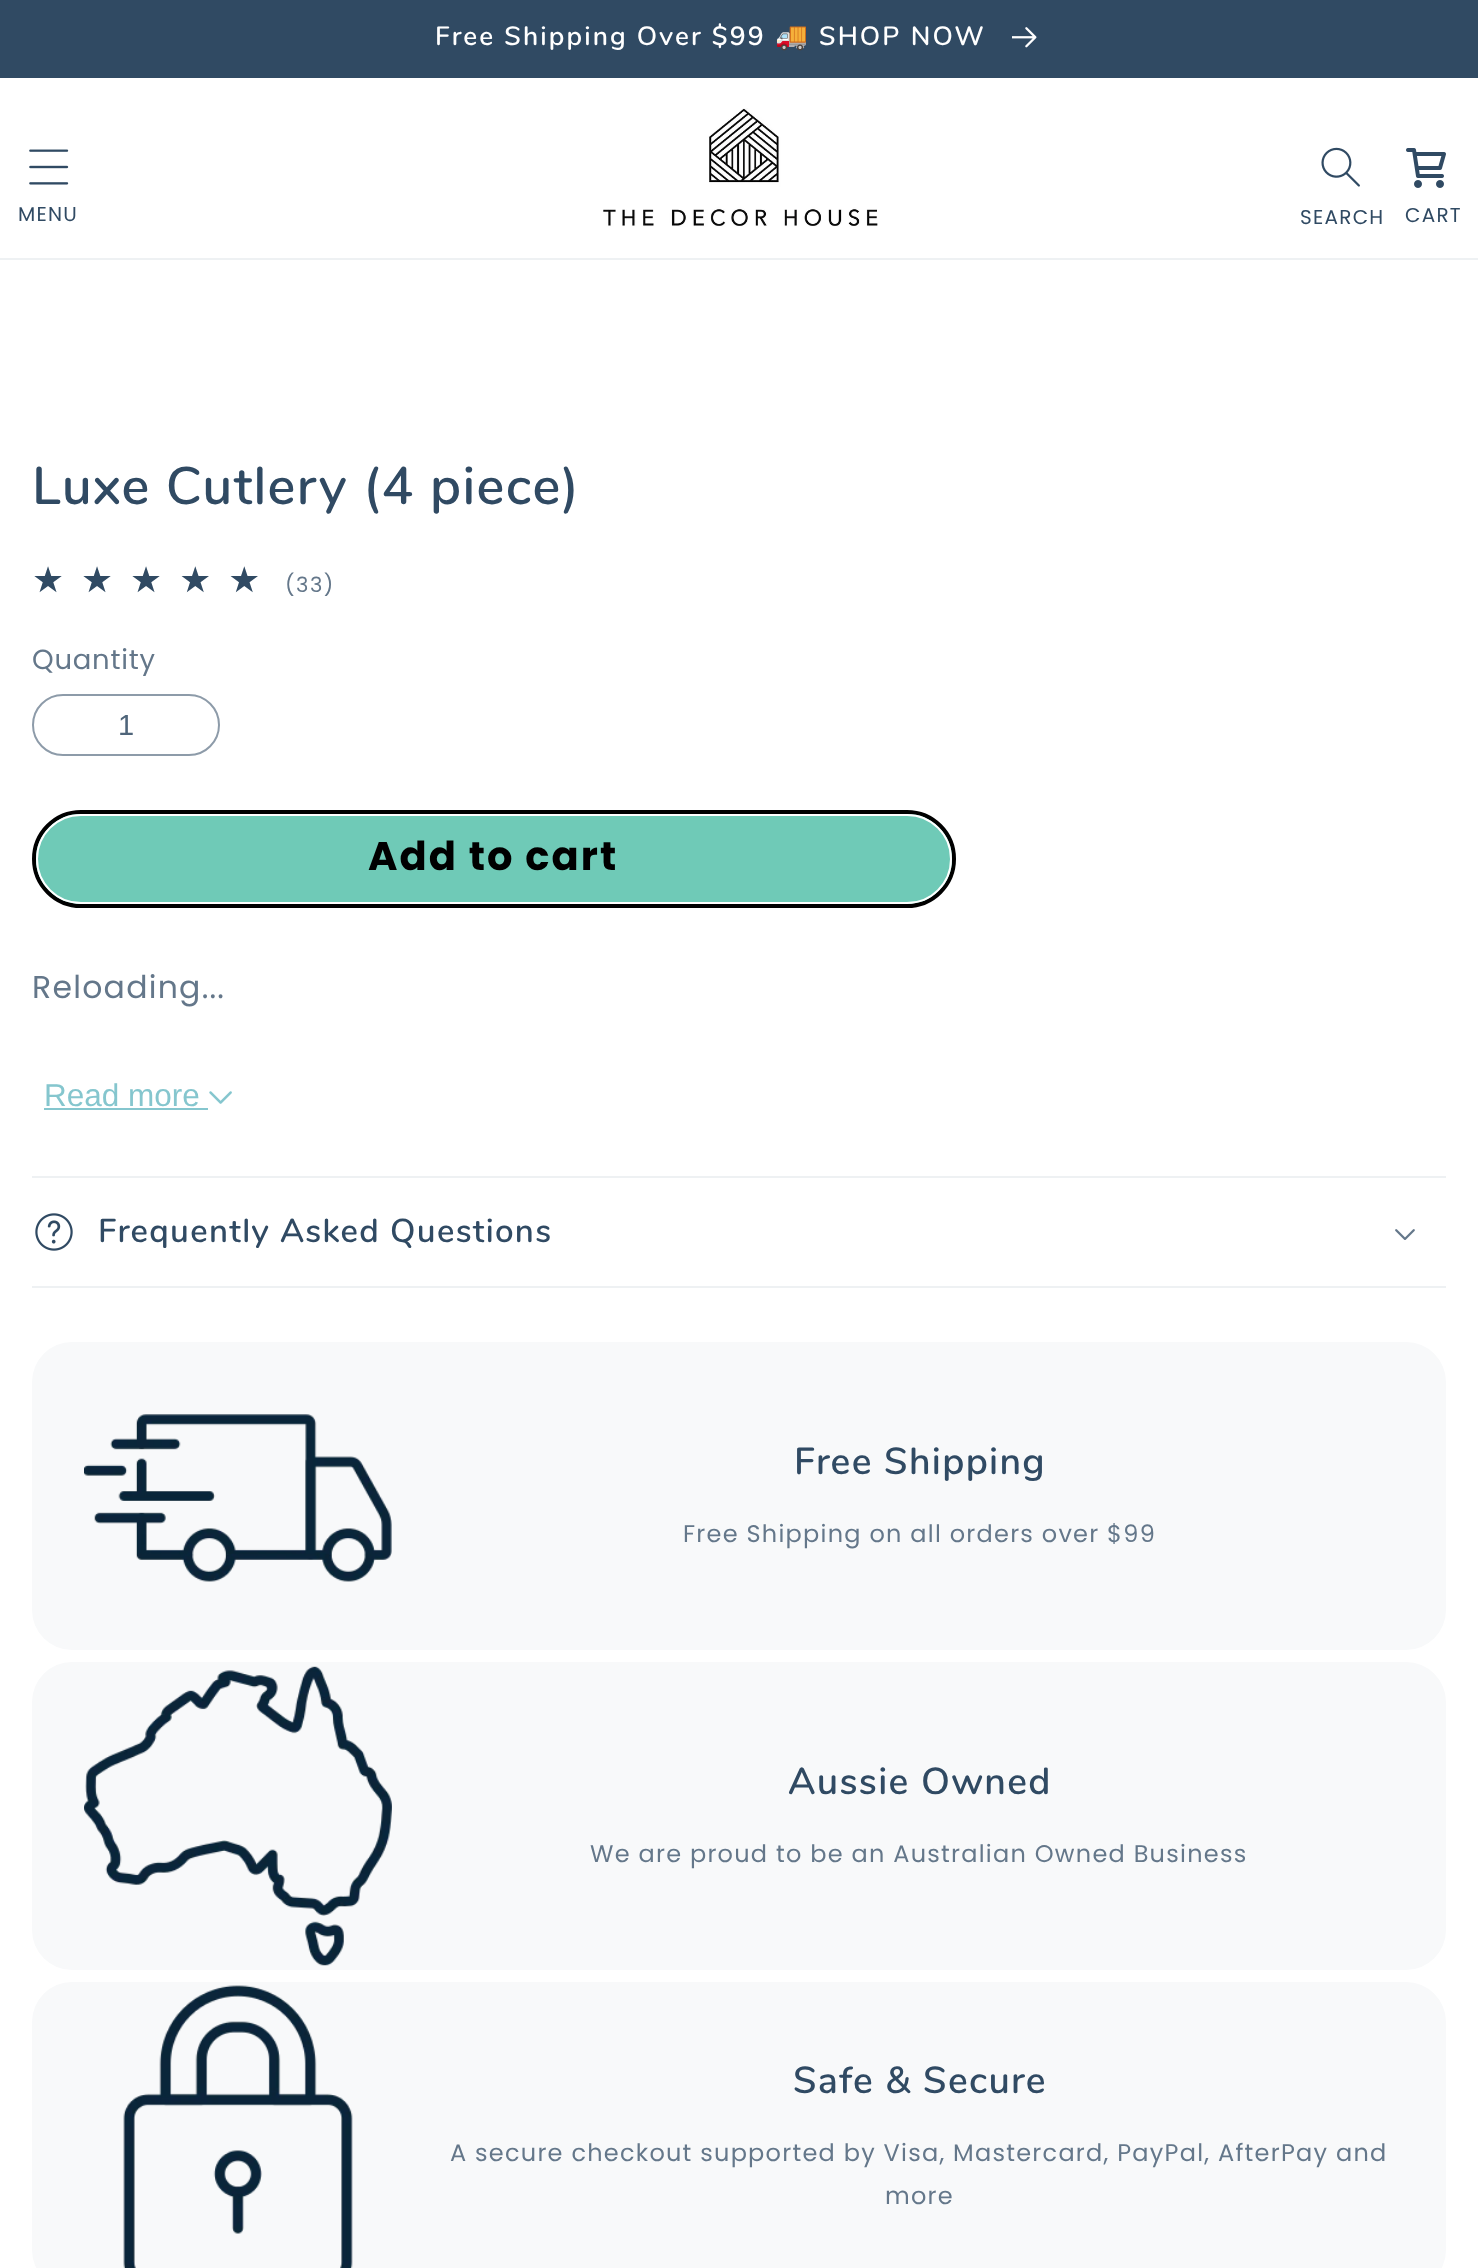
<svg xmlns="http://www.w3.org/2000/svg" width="1478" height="2268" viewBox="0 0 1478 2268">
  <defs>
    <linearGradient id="g1" gradientUnits="userSpaceOnUse" x1="32" y1="580" x2="275" y2="580"><stop offset="1" stop-color="rgb(48,74,99)"/><stop offset="1" stop-color="rgb(224,228,232)"/></linearGradient>
  </defs>
  <rect width="100%" height="100%" fill="rgb(255,255,255)"/>
  <rect x="0" y="0" width="1478" height="78" fill="rgb(48,74,99)"/>
  <text x="435" y="45" font-family="Nunito" font-size="26.4" font-weight="600" letter-spacing="2.1" fill="rgb(255,255,255)">Free Shipping Over $99</text>
  <text x="775" y="45" font-family="Noto Color Emoji" font-size="26.4" letter-spacing="2.1" fill="rgb(255,255,255)">🚚</text>
  <text x="819" y="45" font-family="Nunito" font-size="26.4" font-weight="600" letter-spacing="2.1" fill="rgb(255,255,255)">SHOP NOW</text>
  <image x="1012" y="27" width="25" height="21" href="pic1.png"/>
  <rect x="0" y="258" width="1478" height="2" fill="rgb(238,241,243)"/>
  <image x="29" y="149" width="40" height="36" href="pic2.png"/>
  <text x="18" y="221" font-family="Poppins" font-size="20" letter-spacing="1.25" fill="rgb(48,74,99)">MENU</text>
  <image x="603" y="108" width="275" height="119" href="pic3.png"/>
  <image x="1321" y="147" width="39" height="40" href="pic4.png"/>
  <text x="1300" y="224" font-family="Poppins" font-size="20" letter-spacing="1.25" fill="rgb(48,74,99)">SEARCH</text>
  <image x="1406" y="148" width="40" height="40" href="pic5.png"/>
  <text x="1405" y="222" font-family="Poppins" font-size="20" letter-spacing="1.25" fill="rgb(48,74,99)">CART</text>
  <text x="32" y="504" font-family="Nunito" font-size="52.75" font-weight="600" letter-spacing="1.3" fill="rgb(48,74,99)">Luxe Cutlery (4 piece)</text>
  <text x="32" y="592" font-family="DejaVu Sans" font-size="35.75" letter-spacing="17" fill="url(#g1)">★★★★★</text>
  <text x="285" y="592" font-family="Poppins" font-size="21" letter-spacing="1.5" fill="rgb(100,119,138)">(33)</text>
  <text x="32" y="669" font-family="Poppins" font-size="27.5" letter-spacing="0.75" fill="rgb(100,119,138)">Quantity</text>
  <rect x="33" y="695" width="186" height="60" rx="30" fill="none" stroke="rgb(141,155,169)" stroke-width="2"/>
  <text x="118" y="735" font-family="Liberation Sans" font-size="29" fill="rgb(79,101,122)">1</text>
  <rect x="34" y="812" width="920" height="94" rx="47" fill="rgb(111,202,183)" stroke="rgb(0,0,0)" stroke-width="4"/>
  <rect x="37" y="815" width="914" height="88" rx="44" fill="none" stroke="rgb(255,255,255)" stroke-width="2"/>
  <text x="368" y="870" font-family="Poppins" font-size="40" font-weight="bold" letter-spacing="2.1" fill="rgb(0,0,0)">Add to cart</text>
  <text x="32" y="998" font-family="Poppins" font-size="31.5" letter-spacing="1.25" fill="rgb(100,119,138)">Reloading...</text>
  <text x="44" y="1106" font-family="Liberation Sans" font-size="31.5" fill="rgb(133,198,206)">Read more</text>
  <rect x="44" y="1108" width="164" height="2" fill="rgb(133,198,206)"/>
  <image x="209" y="1091" width="23" height="13" href="pic6.png"/>
  <rect x="32" y="1176" width="1414" height="2" fill="rgb(238,241,243)"/>
  <rect x="32" y="1286" width="1414" height="2" fill="rgb(238,241,243)"/>
  <image x="35" y="1213" width="38" height="38" href="pic7.png"/>
  <text x="98" y="1242" font-family="Nunito" font-size="33" font-weight="600" letter-spacing="1.3" fill="rgb(48,74,99)">Frequently Asked Questions</text>
  <image x="1395" y="1229" width="20" height="11" href="pic8.png"/>
  <rect x="32" y="1342" width="1414" height="308" rx="40" fill="rgb(248,249,250)"/>
  <image x="84" y="1414" width="308" height="168" href="pic9.png"/>
  <text x="794" y="1474" font-family="Nunito" font-size="37.5" font-weight="600" letter-spacing="1.3" fill="rgb(48,74,99)">Free Shipping</text>
  <text x="683" y="1542" font-family="Poppins" font-size="24" letter-spacing="1.25" fill="rgb(100,119,138)">Free Shipping on all orders over $99</text>
  <rect x="32" y="1662" width="1414" height="308" rx="40" fill="rgb(248,249,250)"/>
  <image x="84" y="1666" width="308" height="300" href="pic10.png"/>
  <text x="788" y="1794" font-family="Nunito" font-size="37.5" font-weight="600" letter-spacing="1.3" fill="rgb(48,74,99)">Aussie Owned</text>
  <text x="590" y="1862" font-family="Poppins" font-size="24" letter-spacing="1.25" fill="rgb(100,119,138)">We are proud to be an Australian Owned Business</text>
  <rect x="32" y="1982" width="1414" height="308" rx="40" fill="rgb(248,249,250)"/>
  <image x="123" y="1985" width="230" height="283" href="pic11.png"/>
  <text x="793" y="2093" font-family="Nunito" font-size="37.5" font-weight="600" letter-spacing="1.3" fill="rgb(48,74,99)">Safe &amp; Secure</text>
  <g font-family="Poppins" font-size="24" letter-spacing="1.25" fill="rgb(100,119,138)">
    <text x="450" y="2161">A secure checkout supported by Visa, Mastercard, PayPal, AfterPay and</text>
    <text x="885" y="2204">more</text>
  </g>
</svg>
